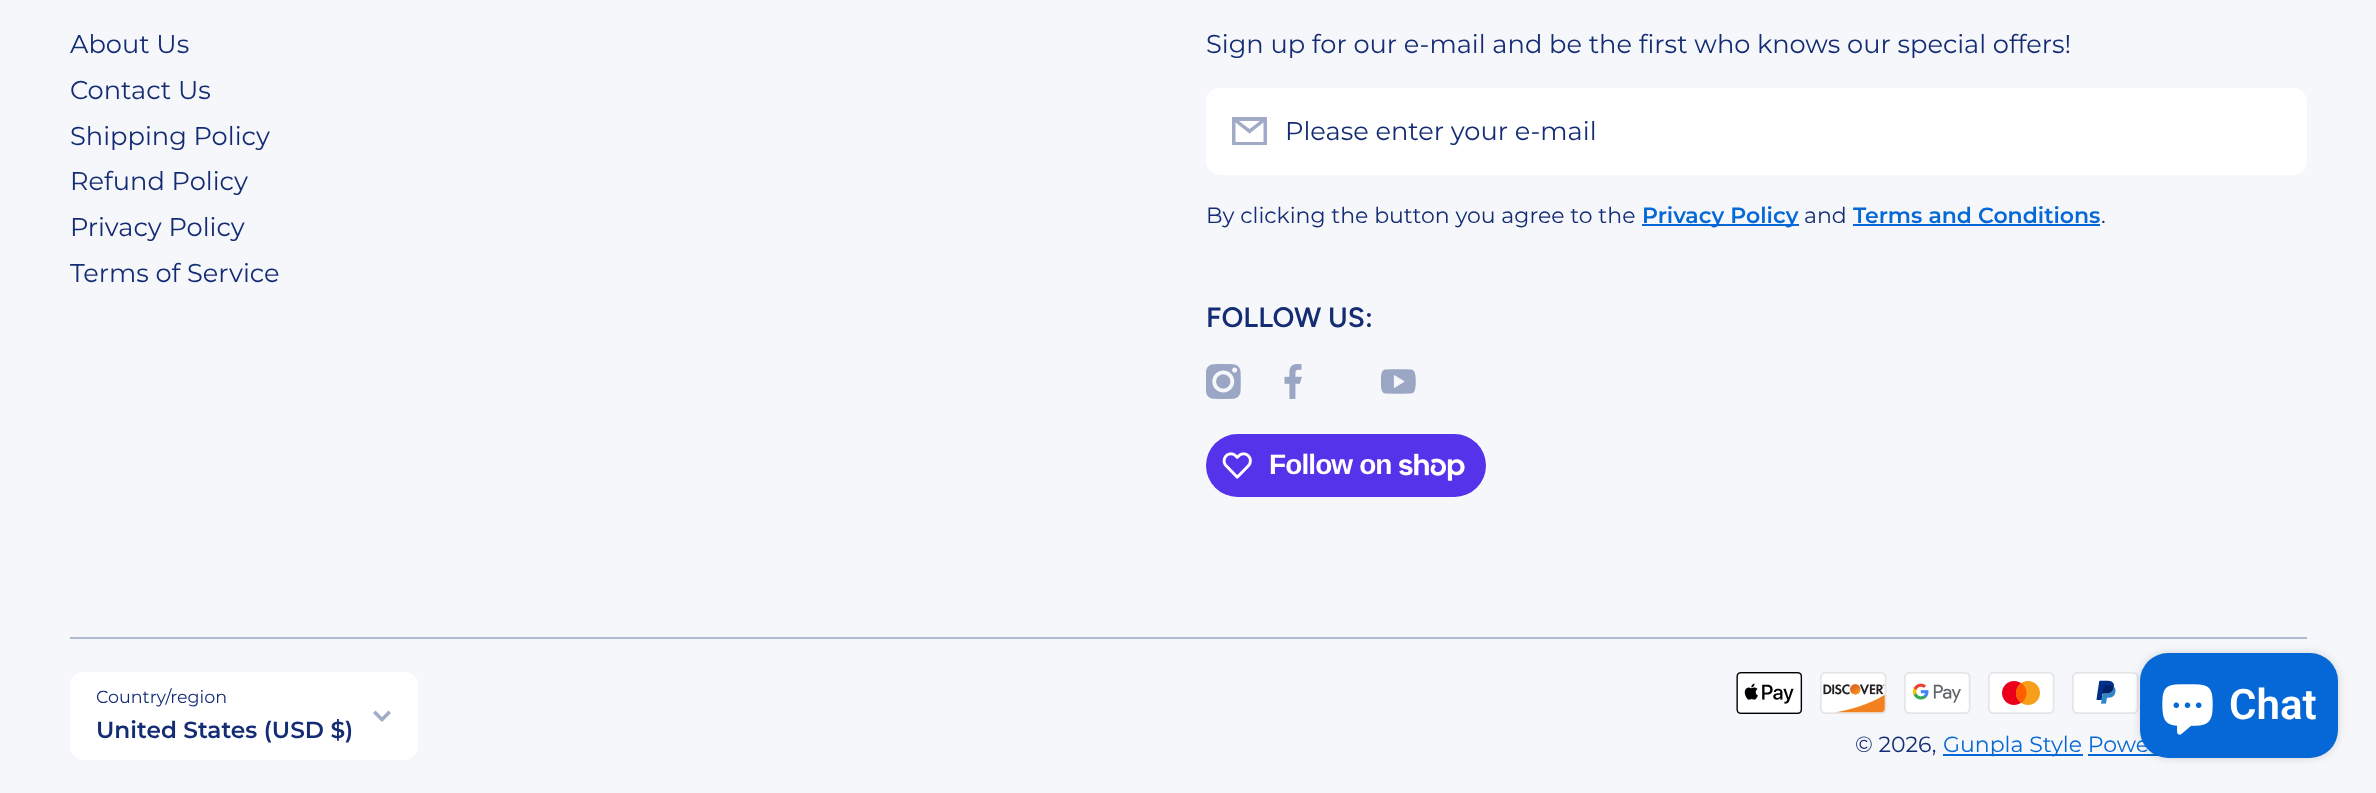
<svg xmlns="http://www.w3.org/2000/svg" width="2376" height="793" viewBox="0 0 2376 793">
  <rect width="100%" height="100%" fill="rgb(246,247,250)"/>
  <g font-family="Montserrat" font-size="25.7" fill="rgb(20,44,115)">
    <text>
      <tspan x="70" y="53">About Us</tspan>
      <tspan x="70" y="99">Contact Us</tspan>
      <tspan x="70" y="145">Shipping Policy</tspan>
      <tspan x="70" y="190">Refund Policy</tspan>
      <tspan x="70" y="236">Privacy Policy</tspan>
      <tspan x="70" y="282">Terms of Service</tspan>
    </text>
    <text x="1206" y="53">Sign up for our e-mail and be the first who knows our special offers!</text>
  </g>
  <rect x="1206" y="88" width="1101" height="87" rx="14" fill="rgb(255,255,255)"/>
  <path d="M1260 121H1239L1249.5 129ZM1235.5 122.5V142H1263.5V122.5L1249.5 133.5ZM1232 145V117H1267V145Z" fill="rgb(161,171,199)" fill-rule="evenodd"/>
  <text x="1285" y="140" font-family="Montserrat" font-size="25.7" fill="rgb(20,44,115)">Please enter your e-mail</text>
  <text x="1206" y="223" font-family="Montserrat" font-size="22" fill="rgb(20,44,115)">By clicking the button you agree to the</text>
  <rect x="1642" y="224" width="157" height="2" fill="rgb(5,104,214)"/>
  <text x="1642" y="223" font-family="Montserrat" font-size="22" font-weight="600" fill="rgb(5,104,214)">Privacy Policy</text>
  <text x="1804" y="223" font-family="Montserrat" font-size="22" fill="rgb(20,44,115)">and</text>
  <text x="1853" y="223" font-family="Montserrat" font-size="22" font-weight="600" fill="rgb(5,104,214)">Terms and Conditions</text>
  <rect x="1853" y="224" width="247" height="2" fill="rgb(5,104,214)"/>
  <text x="2101" y="223" font-family="Montserrat" font-size="22" fill="rgb(20,44,115)">.</text>
  <text x="1206" y="327" font-family="Figtree" font-size="28" font-weight="600" fill="rgb(20,44,115)">FOLLOW US:</text>
  <image x="1206" y="364" width="35" height="35" href="pic1.png"/>
  <image x="1284" y="364" width="18" height="35" href="pic2.png"/>
  <image x="1381" y="369" width="35" height="25" href="pic3.png"/>
  <rect x="1206" y="434" width="280" height="63" rx="31.5" fill="rgb(84,51,235)"/>
  <image x="1222" y="452" width="30" height="27" href="pic4.png"/>
  <text x="1269" y="474" font-family="Liberation Sans" font-size="28" font-weight="bold" letter-spacing="-0.9" fill="rgb(255,255,255)">Follow on</text>
  <image x="1399" y="453" width="66" height="28" href="pic5.png"/>
  <rect x="70" y="637" width="2237" height="2" fill="rgb(178,186,210)"/>
  <rect x="70" y="672" width="348" height="88" rx="14" fill="rgb(255,255,255)"/>
  <text x="96" y="703" font-family="Montserrat" font-size="17.5" fill="rgb(20,44,115)">Country/region</text>
  <path d="M382 717L375.5 710.5L373 713L382 722L391 713L388.5 710.5Z" fill="rgb(161,171,199)" fill-rule="evenodd"/>
  <text x="96" y="738" font-family="Montserrat" font-size="23.25" font-weight="600" fill="rgb(20,44,115)">United States (USD $)</text>
  <image x="1736" y="672" width="67" height="42" href="pic6.png"/>
  <image x="1820" y="672" width="67" height="42" href="pic7.png"/>
  <image x="1904" y="672" width="67" height="42" href="pic8.png"/>
  <image x="1988" y="672" width="67" height="42" href="pic9.png"/>
  <image x="2072" y="672" width="67" height="42" href="pic10.png"/>
  <text x="1855" y="752" font-family="Montserrat" font-size="22" fill="rgb(20,44,115)">© 2026,</text>
  <rect x="1943" y="754" width="140" height="2" fill="rgb(5,104,214)"/>
  <text x="1943" y="752" font-family="Montserrat" font-size="22" fill="rgb(5,104,214)">Gunpla Style Powe</text>
  <rect x="2088" y="754" width="70" height="2" fill="rgb(5,104,214)"/>
  <rect x="2140" y="653" width="198" height="105" rx="28" fill="rgba(0,0,0,0.15)" filter="blur(4.5px)"/>
  <rect x="2140" y="653" width="198" height="105" rx="28" fill="rgb(5,104,214)"/>
  <image x="2162" y="684" width="51" height="51" href="pic11.png"/>
  <text x="2229" y="719" font-family="Roboto" font-size="42" font-weight="600" fill="rgb(255,255,255)">Chat</text>
</svg>
